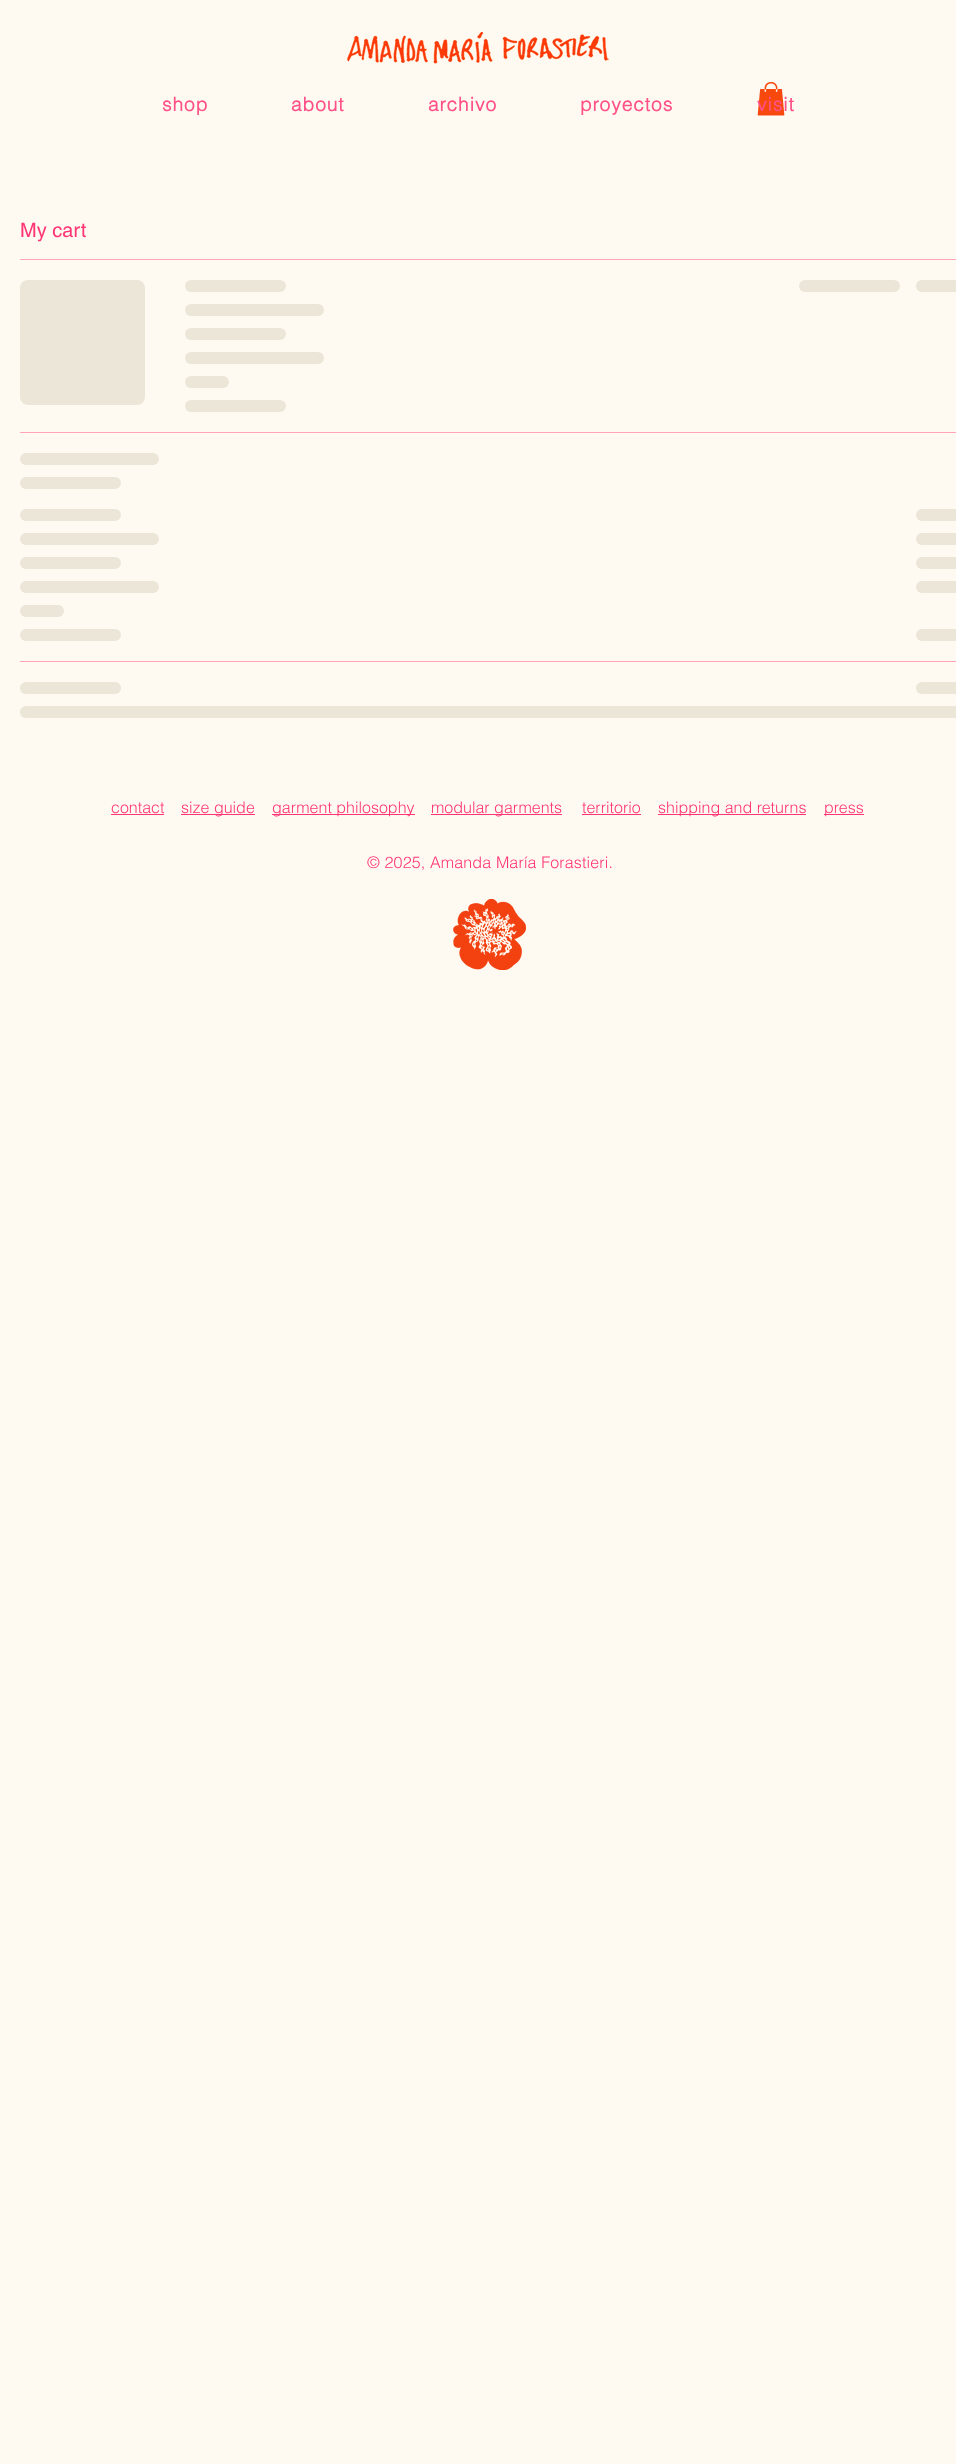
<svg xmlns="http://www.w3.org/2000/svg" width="956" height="2464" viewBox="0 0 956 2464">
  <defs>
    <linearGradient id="g1" gradientUnits="userSpaceOnUse" x1="20" y1="343" x2="520" y2="343"><stop offset="0.25" stop-color="rgb(236,230,217)"/><stop offset="0.37" stop-color="rgb(217,209,194)"/><stop offset="0.63" stop-color="rgb(236,230,217)"/></linearGradient>
    <linearGradient id="g2" gradientUnits="userSpaceOnUse" x1="185" y1="286" x2="589" y2="286"><stop offset="0.25" stop-color="rgb(236,230,217)"/><stop offset="0.37" stop-color="rgb(217,209,194)"/><stop offset="0.63" stop-color="rgb(236,230,217)"/></linearGradient>
    <linearGradient id="g3" gradientUnits="userSpaceOnUse" x1="185" y1="310" x2="741" y2="310"><stop offset="0.25" stop-color="rgb(236,230,217)"/><stop offset="0.37" stop-color="rgb(217,209,194)"/><stop offset="0.63" stop-color="rgb(236,230,217)"/></linearGradient>
    <linearGradient id="g4" gradientUnits="userSpaceOnUse" x1="185" y1="334" x2="589" y2="334"><stop offset="0.25" stop-color="rgb(236,230,217)"/><stop offset="0.37" stop-color="rgb(217,209,194)"/><stop offset="0.63" stop-color="rgb(236,230,217)"/></linearGradient>
    <linearGradient id="g5" gradientUnits="userSpaceOnUse" x1="185" y1="358" x2="741" y2="358"><stop offset="0.25" stop-color="rgb(236,230,217)"/><stop offset="0.37" stop-color="rgb(217,209,194)"/><stop offset="0.63" stop-color="rgb(236,230,217)"/></linearGradient>
    <linearGradient id="g6" gradientUnits="userSpaceOnUse" x1="185" y1="382" x2="361" y2="382"><stop offset="0.25" stop-color="rgb(236,230,217)"/><stop offset="0.37" stop-color="rgb(217,209,194)"/><stop offset="0.63" stop-color="rgb(236,230,217)"/></linearGradient>
    <linearGradient id="g7" gradientUnits="userSpaceOnUse" x1="185" y1="406" x2="589" y2="406"><stop offset="0.25" stop-color="rgb(236,230,217)"/><stop offset="0.37" stop-color="rgb(217,209,194)"/><stop offset="0.63" stop-color="rgb(236,230,217)"/></linearGradient>
    <linearGradient id="g8" gradientUnits="userSpaceOnUse" x1="799" y1="286" x2="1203" y2="286"><stop offset="0.25" stop-color="rgb(236,230,217)"/><stop offset="0.37" stop-color="rgb(217,209,194)"/><stop offset="0.63" stop-color="rgb(236,230,217)"/></linearGradient>
    <linearGradient id="g9" gradientUnits="userSpaceOnUse" x1="916" y1="286" x2="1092" y2="286"><stop offset="0.25" stop-color="rgb(236,230,217)"/><stop offset="0.37" stop-color="rgb(217,209,194)"/><stop offset="0.63" stop-color="rgb(236,230,217)"/></linearGradient>
    <linearGradient id="g10" gradientUnits="userSpaceOnUse" x1="20" y1="459" x2="576" y2="459"><stop offset="0.25" stop-color="rgb(236,230,217)"/><stop offset="0.37" stop-color="rgb(217,209,194)"/><stop offset="0.63" stop-color="rgb(236,230,217)"/></linearGradient>
    <linearGradient id="g11" gradientUnits="userSpaceOnUse" x1="20" y1="483" x2="424" y2="483"><stop offset="0.25" stop-color="rgb(236,230,217)"/><stop offset="0.37" stop-color="rgb(217,209,194)"/><stop offset="0.63" stop-color="rgb(236,230,217)"/></linearGradient>
    <linearGradient id="g12" gradientUnits="userSpaceOnUse" x1="20" y1="515" x2="424" y2="515"><stop offset="0.25" stop-color="rgb(236,230,217)"/><stop offset="0.37" stop-color="rgb(217,209,194)"/><stop offset="0.63" stop-color="rgb(236,230,217)"/></linearGradient>
    <linearGradient id="g13" gradientUnits="userSpaceOnUse" x1="916" y1="515" x2="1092" y2="515"><stop offset="0.25" stop-color="rgb(236,230,217)"/><stop offset="0.37" stop-color="rgb(217,209,194)"/><stop offset="0.63" stop-color="rgb(236,230,217)"/></linearGradient>
    <linearGradient id="g14" gradientUnits="userSpaceOnUse" x1="20" y1="539" x2="576" y2="539"><stop offset="0.25" stop-color="rgb(236,230,217)"/><stop offset="0.37" stop-color="rgb(217,209,194)"/><stop offset="0.63" stop-color="rgb(236,230,217)"/></linearGradient>
    <linearGradient id="g15" gradientUnits="userSpaceOnUse" x1="916" y1="539" x2="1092" y2="539"><stop offset="0.25" stop-color="rgb(236,230,217)"/><stop offset="0.37" stop-color="rgb(217,209,194)"/><stop offset="0.63" stop-color="rgb(236,230,217)"/></linearGradient>
    <linearGradient id="g16" gradientUnits="userSpaceOnUse" x1="20" y1="563" x2="424" y2="563"><stop offset="0.25" stop-color="rgb(236,230,217)"/><stop offset="0.37" stop-color="rgb(217,209,194)"/><stop offset="0.63" stop-color="rgb(236,230,217)"/></linearGradient>
    <linearGradient id="g17" gradientUnits="userSpaceOnUse" x1="916" y1="563" x2="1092" y2="563"><stop offset="0.25" stop-color="rgb(236,230,217)"/><stop offset="0.37" stop-color="rgb(217,209,194)"/><stop offset="0.63" stop-color="rgb(236,230,217)"/></linearGradient>
    <linearGradient id="g18" gradientUnits="userSpaceOnUse" x1="20" y1="587" x2="576" y2="587"><stop offset="0.25" stop-color="rgb(236,230,217)"/><stop offset="0.37" stop-color="rgb(217,209,194)"/><stop offset="0.63" stop-color="rgb(236,230,217)"/></linearGradient>
    <linearGradient id="g19" gradientUnits="userSpaceOnUse" x1="916" y1="587" x2="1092" y2="587"><stop offset="0.25" stop-color="rgb(236,230,217)"/><stop offset="0.37" stop-color="rgb(217,209,194)"/><stop offset="0.63" stop-color="rgb(236,230,217)"/></linearGradient>
    <linearGradient id="g20" gradientUnits="userSpaceOnUse" x1="20" y1="611" x2="196" y2="611"><stop offset="0.25" stop-color="rgb(236,230,217)"/><stop offset="0.37" stop-color="rgb(217,209,194)"/><stop offset="0.63" stop-color="rgb(236,230,217)"/></linearGradient>
    <linearGradient id="g21" gradientUnits="userSpaceOnUse" x1="20" y1="635" x2="424" y2="635"><stop offset="0.25" stop-color="rgb(236,230,217)"/><stop offset="0.37" stop-color="rgb(217,209,194)"/><stop offset="0.63" stop-color="rgb(236,230,217)"/></linearGradient>
    <linearGradient id="g22" gradientUnits="userSpaceOnUse" x1="916" y1="635" x2="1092" y2="635"><stop offset="0.25" stop-color="rgb(236,230,217)"/><stop offset="0.37" stop-color="rgb(217,209,194)"/><stop offset="0.63" stop-color="rgb(236,230,217)"/></linearGradient>
    <linearGradient id="g23" gradientUnits="userSpaceOnUse" x1="20" y1="688" x2="424" y2="688"><stop offset="0.25" stop-color="rgb(236,230,217)"/><stop offset="0.37" stop-color="rgb(217,209,194)"/><stop offset="0.63" stop-color="rgb(236,230,217)"/></linearGradient>
    <linearGradient id="g24" gradientUnits="userSpaceOnUse" x1="916" y1="688" x2="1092" y2="688"><stop offset="0.25" stop-color="rgb(236,230,217)"/><stop offset="0.37" stop-color="rgb(217,209,194)"/><stop offset="0.63" stop-color="rgb(236,230,217)"/></linearGradient>
    <linearGradient id="g25" gradientUnits="userSpaceOnUse" x1="20" y1="712" x2="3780" y2="712"><stop offset="0.25" stop-color="rgb(236,230,217)"/><stop offset="0.37" stop-color="rgb(217,209,194)"/><stop offset="0.63" stop-color="rgb(236,230,217)"/></linearGradient>
  </defs>
  <rect width="100%" height="100%" fill="rgb(255,250,241)"/>
  <image x="757" y="82" width="28" height="34" href="pic1.png"/>
  <image x="347" y="32" width="262" height="38" href="pic2.png"/>
  <g font-family="helvetica" font-size="19" font-weight="bold" letter-spacing="1" fill="rgb(255,81,136)">
    <text x="162" y="111">shop</text>
    <text x="291" y="111">about</text>
    <text x="428" y="111">archivo</text>
    <text x="580" y="111">proyectos</text>
    <text x="757" y="111">visit</text>
  </g>
  <rect x="20" y="259" width="936" height="1" fill="rgb(255,164,187)"/>
  <text x="20" y="237" font-family="helvetica" font-size="20" fill="rgb(255,53,117)">My cart</text>
  <rect x="20" y="280" width="125" height="125" rx="8" fill="url(#g1)"/>
  <rect x="185" y="280" width="101" height="12" rx="6" fill="url(#g2)"/>
  <rect x="185" y="304" width="139" height="12" rx="6" fill="url(#g3)"/>
  <rect x="185" y="328" width="101" height="12" rx="6" fill="url(#g4)"/>
  <rect x="185" y="352" width="139" height="12" rx="6" fill="url(#g5)"/>
  <rect x="185" y="376" width="44" height="12" rx="6" fill="url(#g6)"/>
  <rect x="185" y="400" width="101" height="12" rx="6" fill="url(#g7)"/>
  <rect x="799" y="280" width="101" height="12" rx="6" fill="url(#g8)"/>
  <rect x="916" y="280" width="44" height="12" rx="6" fill="url(#g9)"/>
  <rect x="20" y="432" width="936" height="1" fill="rgb(255,164,187)"/>
  <rect x="20" y="453" width="139" height="12" rx="6" fill="url(#g10)"/>
  <rect x="20" y="477" width="101" height="12" rx="6" fill="url(#g11)"/>
  <rect x="20" y="509" width="101" height="12" rx="6" fill="url(#g12)"/>
  <rect x="916" y="509" width="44" height="12" rx="6" fill="url(#g13)"/>
  <rect x="20" y="533" width="139" height="12" rx="6" fill="url(#g14)"/>
  <rect x="916" y="533" width="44" height="12" rx="6" fill="url(#g15)"/>
  <rect x="20" y="557" width="101" height="12" rx="6" fill="url(#g16)"/>
  <rect x="916" y="557" width="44" height="12" rx="6" fill="url(#g17)"/>
  <rect x="20" y="581" width="139" height="12" rx="6" fill="url(#g18)"/>
  <rect x="916" y="581" width="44" height="12" rx="6" fill="url(#g19)"/>
  <rect x="20" y="605" width="44" height="12" rx="6" fill="url(#g20)"/>
  <rect x="20" y="629" width="101" height="12" rx="6" fill="url(#g21)"/>
  <rect x="916" y="629" width="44" height="12" rx="6" fill="url(#g22)"/>
  <rect x="20" y="661" width="936" height="1" fill="rgb(255,164,187)"/>
  <rect x="20" y="682" width="101" height="12" rx="6" fill="url(#g23)"/>
  <rect x="916" y="682" width="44" height="12" rx="6" fill="url(#g24)"/>
  <rect x="20" y="706" width="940" height="12" rx="6" fill="url(#g25)"/>
  <text x="111" y="813" font-family="helvetica" font-size="16" font-weight="300" fill="rgb(255,53,117)">contact</text>
  <rect x="111" y="814" width="53" height="1" fill="rgb(255,53,117)"/>
  <rect x="181" y="814" width="74" height="1" fill="rgb(255,53,117)"/>
  <text x="181" y="813" font-family="helvetica" font-size="16" font-weight="300" fill="rgb(255,53,117)">size guide</text>
  <rect x="272" y="814" width="143" height="1" fill="rgb(255,53,117)"/>
  <text x="272" y="813" font-family="helvetica" font-size="16" font-weight="300" fill="rgb(255,53,117)">garment philosophy</text>
  <rect x="431" y="814" width="131" height="1" fill="rgb(255,53,117)"/>
  <g font-family="helvetica" font-size="16" font-weight="300" fill="rgb(255,53,117)">
    <text x="431" y="813">modular garments</text>
    <text x="582" y="813">territorio</text>
  </g>
  <rect x="582" y="814" width="59" height="1" fill="rgb(255,53,117)"/>
  <rect x="658" y="814" width="148" height="1" fill="rgb(255,53,117)"/>
  <text x="658" y="813" font-family="helvetica" font-size="16" font-weight="300" fill="rgb(255,53,117)">shipping and returns</text>
  <rect x="824" y="814" width="40" height="1" fill="rgb(255,53,117)"/>
  <text x="824" y="813" font-family="helvetica" font-size="16" font-weight="300" fill="rgb(255,53,117)">press</text>
  <text x="367" y="868" font-family="helvetica" font-size="16" font-weight="300" letter-spacing="0.15" fill="rgb(255,53,117)">© 2025, Amanda María Forastieri.</text>
  <image x="453" y="899" width="73" height="71" href="pic3.png"/>
</svg>
